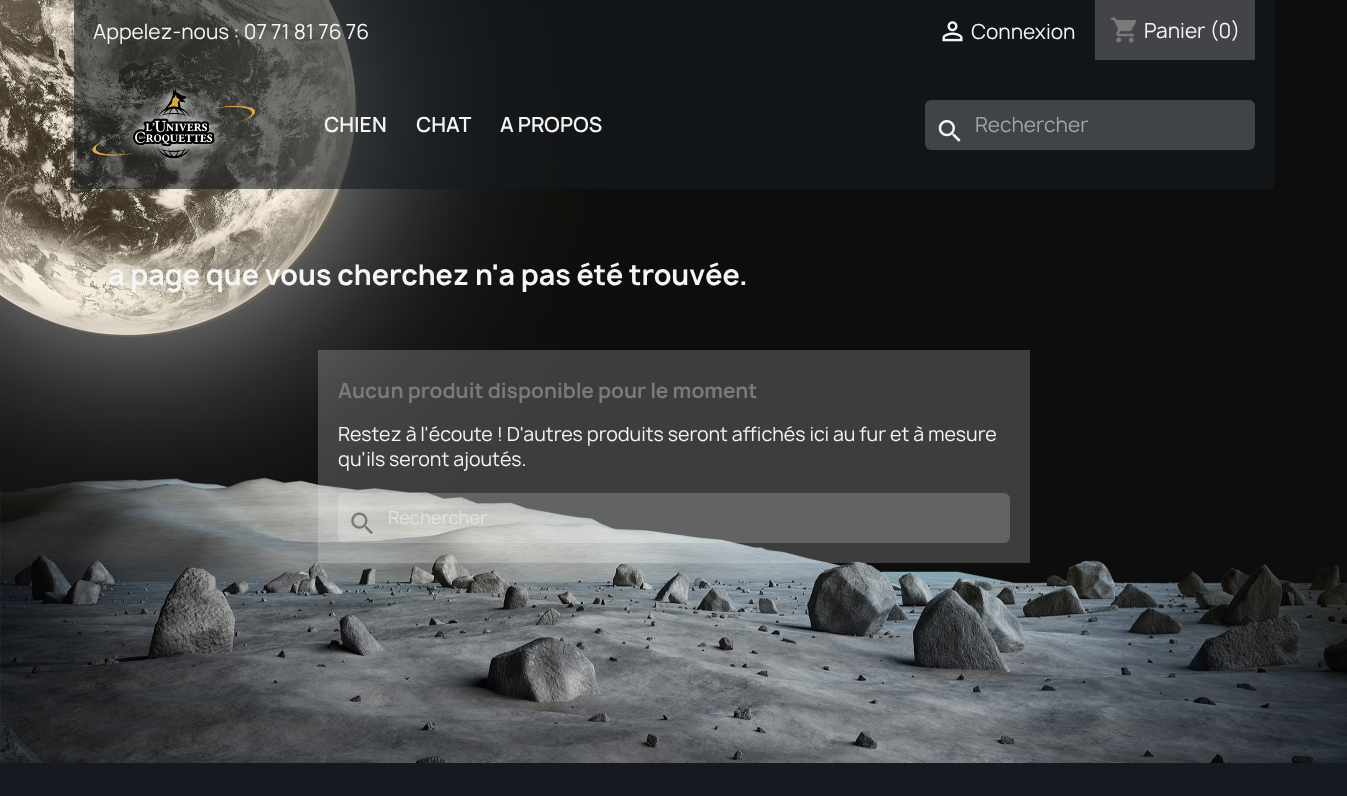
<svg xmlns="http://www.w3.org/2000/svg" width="1347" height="796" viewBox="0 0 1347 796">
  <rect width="100%" height="100%" fill="rgb(255,255,255)"/>
  <image x="0" y="0" width="1347" height="763" href="pic1.png"/>
  <rect x="74" y="0" width="1200" height="60" fill="rgba(21,26,32,0.6)"/>
  <text x="93" y="39" font-family="Manrope" font-size="20" fill="rgb(245,245,245)">Appelez-nous : 07 71 81 76 76</text>
  <image x="942" y="21" width="21" height="21" href="pic2.png"/>
  <text x="971" y="39" font-family="Manrope" font-size="20" fill="rgb(245,245,245)">Connexion</text>
  <rect x="1095" y="0" width="160" height="60" fill="rgb(66,68,71)"/>
  <image x="1111" y="17" width="26" height="26" href="pic3.png"/>
  <text x="1144" y="38" font-family="Manrope" font-size="20" fill="rgb(245,245,245)">Panier (0)</text>
  <rect x="74" y="60" width="1200" height="129" fill="rgba(21,26,32,0.6)"/>
  <image x="92" y="86" width="163" height="76" href="pic4.png"/>
  <g font-family="Manrope" font-size="20" font-weight="600" fill="rgb(245,245,245)">
    <text x="324" y="132">CHIEN</text>
    <text x="416" y="132">CHAT</text>
    <text x="500" y="132">A PROPOS</text>
  </g>
  <rect x="925" y="100" width="330" height="50" rx="6" fill="rgb(65,68,71)"/>
  <image x="938" y="120" width="23" height="22" href="pic5.png"/>
  <text x="975" y="132" font-family="Manrope" font-size="20" fill="rgb(162,164,165)">Rechercher</text>
  <text x="108" y="285" font-family="Manrope" font-size="27.5" font-weight="bold" fill="rgb(245,245,245)">a page que vous cherchez n'a pas été trouvée.</text>
  <rect x="318" y="350" width="712" height="213" fill="rgba(255,255,255,0.2)"/>
  <text x="338" y="398" font-family="Manrope" font-size="20" font-weight="bold" fill="rgb(122,122,122)">Aucun produit disponible pour le moment</text>
  <g font-family="Manrope" font-size="18.75" fill="rgb(245,245,245)">
    <text>
      <tspan x="338" y="441">Restez à l'écoute ! D'autres produits seront affichés ici au fur et à mesure</tspan>
      <tspan x="338" y="466">qu'ils seront ajoutés.</tspan>
    </text>
  </g>
  <rect x="338" y="493" width="672" height="50" rx="6" fill="rgba(255,255,255,0.2)"/>
  <image x="351" y="512" width="22" height="23" href="pic6.png"/>
  <text x="388" y="524" font-family="Manrope" font-size="17.5" fill="rgb(225,225,223)">Rechercher</text>
  <rect x="0" y="763" width="1347" height="33" fill="rgb(21,26,32)"/>
</svg>
